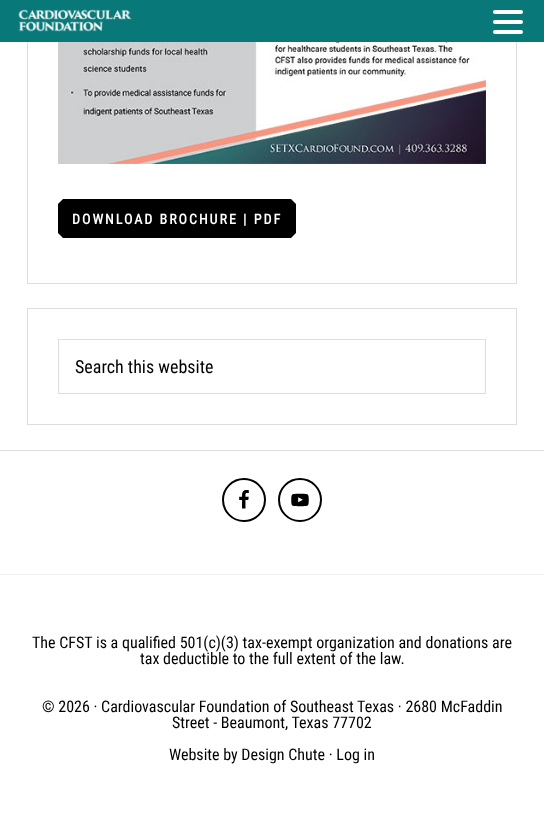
<svg xmlns="http://www.w3.org/2000/svg" width="544" height="823" viewBox="0 0 544 823">
  <rect width="100%" height="100%" fill="rgb(255,255,255)"/>
  <rect x="27.5" y="-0.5" width="489" height="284" fill="none" stroke="rgb(221,221,221)"/>
  <rect x="0" y="0" width="544" height="42" fill="rgb(8,120,120)"/>
  <image x="18" y="9" width="114" height="23" href="pic1.png"/>
  <rect x="493" y="20" width="30" height="4" rx="2" fill="rgb(255,255,255)"/>
  <rect x="493" y="10" width="30" height="4" rx="2" fill="rgb(255,255,255)"/>
  <rect x="493" y="30" width="30" height="4" rx="2" fill="rgb(255,255,255)"/>
  <image x="58" y="42" width="428" height="122" href="pic2.png"/>
  <rect x="58" y="204" width="238" height="29" fill="rgb(0,0,0)"/>
  <path d="M296 204H58L63 199H291Z" fill="rgb(0,0,0)"/>
  <text x="72" y="224" font-family="Roboto Condensed" font-size="14" font-weight="bold" letter-spacing="2" fill="rgb(255,255,255)">DOWNLOAD BROCHURE | PDF</text>
  <path d="M58 233H296L291 238H63Z" fill="rgb(0,0,0)"/>
  <rect x="27.5" y="308.5" width="489" height="116" fill="none" stroke="rgb(221,221,221)"/>
  <rect x="58.5" y="339.5" width="427" height="54" fill="none" stroke="rgb(221,221,221)"/>
  <text x="75" y="373" font-family="Roboto Condensed" font-size="18" fill="rgb(0,0,0)">Search this website</text>
  <rect x="0" y="450" width="544" height="1" fill="rgb(221,221,221)"/>
  <circle cx="244" cy="500" r="21" fill="none" stroke="rgb(2,2,2)" stroke-width="2"/>
  <image x="239" y="490" width="10" height="19" href="pic3.png"/>
  <circle cx="300" cy="500" r="21" fill="none" stroke="rgb(2,2,2)" stroke-width="2"/>
  <image x="291" y="493" width="18" height="14" href="pic4.png"/>
  <rect x="0" y="574" width="544" height="1" fill="rgb(238,238,238)"/>
  <g font-family="Roboto Condensed" font-size="16" fill="rgb(0,0,0)">
    <text x="32" y="648">The CFST is a qualified 501(c)(3) tax-exempt organization and donations are</text>
    <text x="140" y="664">tax deductible to the full extent of the law.</text>
    <text x="42" y="712">© 2026 · Cardiovascular Foundation of Southeast Texas · 2680 McFaddin</text>
    <text x="172" y="728">Street - Beaumont, Texas 77702</text>
    <text x="169" y="760">Website by Design Chute · Log in</text>
  </g>
</svg>
